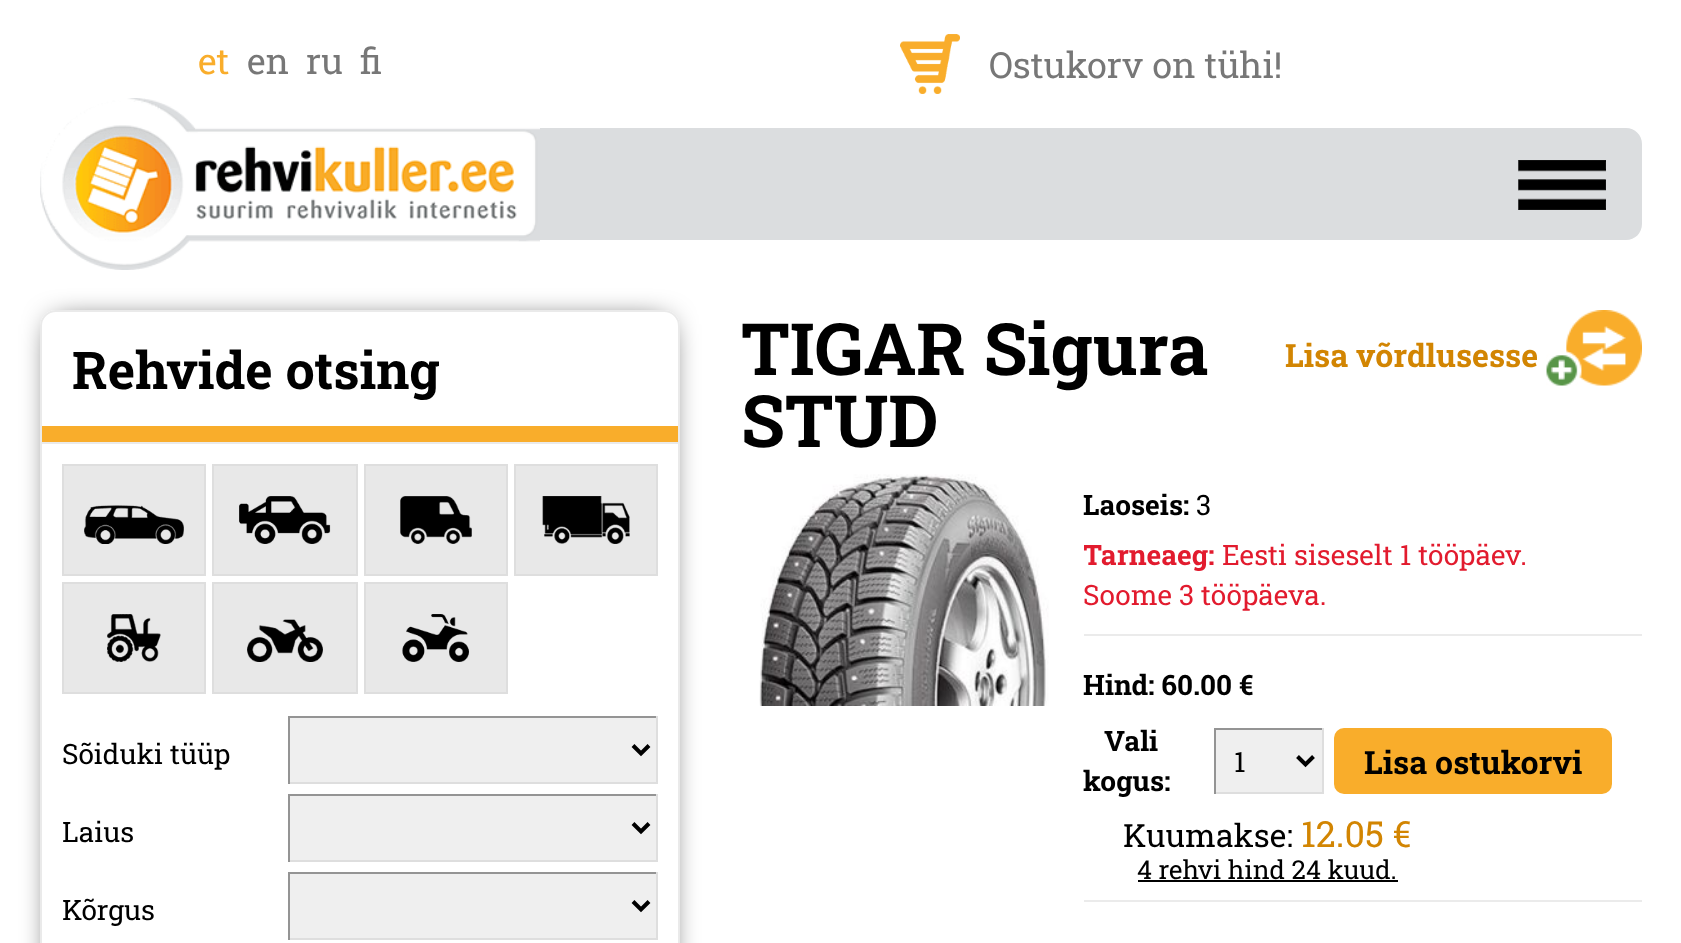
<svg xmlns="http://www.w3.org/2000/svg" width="1681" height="943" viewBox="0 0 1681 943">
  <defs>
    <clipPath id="clip1"><path d="M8 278H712V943H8ZM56 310H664C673 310 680 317 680 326V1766C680 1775 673 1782 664 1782H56C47 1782 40 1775 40 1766V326C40 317 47 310 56 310Z" clip-rule="evenodd"/></clipPath>
    <clipPath id="clip2"><rect x="1084" y="474" width="558" height="160"/></clipPath>
  </defs>
  <rect width="100%" height="100%" fill="rgb(255,255,255)"/>
  <text x="198" y="74" font-family="Roboto Slab" font-size="36" fill="rgb(249,173,43)">et</text>
  <g font-family="Roboto Slab" font-size="36" fill="rgb(119,119,119)">
    <text x="247" y="74">en</text>
    <text x="306" y="74">ru</text>
    <text x="360" y="74">fi</text>
  </g>
  <image x="40" y="98" width="500" height="172" href="pic1.png"/>
  <image x="900" y="34" width="60" height="60" href="pic2.png"/>
  <text x="989" y="78" font-family="Roboto Slab" font-size="36" fill="rgb(119,119,119)">Ostukorv on tühi!</text>
  <path d="M540 128H1626C1635 128 1642 135 1642 144V224C1642 233 1635 240 1626 240H540Z" fill="rgb(219,221,223)"/>
  <image x="1518" y="160" width="88" height="50" href="pic3.png"/>
  <g clip-path="url(#clip1)">
    <rect x="54" y="324" width="612" height="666" rx="2" fill="rgb(0,0,0)" filter="blur(15px)"/>
  </g>
  <rect x="41" y="311" width="638" height="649" rx="15" fill="none" stroke="rgb(234,234,234)" stroke-width="2"/>
  <rect x="42" y="426" width="636" height="16" fill="rgb(249,173,43)"/>
  <text x="72" y="389" font-family="Roboto Slab" font-size="52" font-weight="bold" fill="rgb(0,0,0)">Rehvide otsing</text>
  <rect x="42" y="442" width="636" height="2" fill="rgb(234,234,234)"/>
  <rect x="63" y="465" width="142" height="110" fill="rgb(232,232,232)" stroke="rgb(222,222,222)" stroke-width="2"/>
  <image x="84" y="505" width="100" height="39" href="pic4.png"/>
  <rect x="213" y="465" width="144" height="110" fill="rgb(232,232,232)" stroke="rgb(222,222,222)" stroke-width="2"/>
  <image x="239" y="496" width="92" height="48" href="pic5.png"/>
  <rect x="365" y="465" width="142" height="110" fill="rgb(232,232,232)" stroke="rgb(222,222,222)" stroke-width="2"/>
  <image x="400" y="496" width="72" height="48" href="pic6.png"/>
  <rect x="515" y="465" width="142" height="110" fill="rgb(232,232,232)" stroke="rgb(222,222,222)" stroke-width="2"/>
  <image x="542" y="496" width="88" height="48" href="pic7.png"/>
  <rect x="63" y="583" width="142" height="110" fill="rgb(232,232,232)" stroke="rgb(222,222,222)" stroke-width="2"/>
  <image x="107" y="614" width="54" height="48" href="pic8.png"/>
  <rect x="213" y="583" width="144" height="110" fill="rgb(232,232,232)" stroke="rgb(222,222,222)" stroke-width="2"/>
  <image x="247" y="619" width="76" height="43" href="pic9.png"/>
  <rect x="365" y="583" width="142" height="110" fill="rgb(232,232,232)" stroke="rgb(222,222,222)" stroke-width="2"/>
  <image x="402" y="614" width="67" height="48" href="pic10.png"/>
  <text x="62" y="764" font-family="Roboto Slab" font-size="28" fill="rgb(0,0,0)">Sõiduki tüüp</text>
  <rect x="290" y="718" width="366" height="64" fill="rgb(239,239,239)"/>
  <rect x="288" y="716" width="370" height="2" fill="rgb(148,148,148)"/>
  <rect x="656" y="716" width="2" height="68" fill="rgb(222,222,222)"/>
  <rect x="288" y="782" width="370" height="2" fill="rgb(222,222,222)"/>
  <rect x="288" y="716" width="2" height="68" fill="rgb(148,148,148)"/>
  <path d="M633 745.5L641 753.5L649 745.5" fill="none" stroke="rgb(0,0,0)" stroke-width="4"/>
  <text x="62" y="842" font-family="Roboto Slab" font-size="28" fill="rgb(0,0,0)">Laius</text>
  <rect x="290" y="796" width="366" height="64" fill="rgb(239,239,239)"/>
  <rect x="288" y="794" width="370" height="2" fill="rgb(148,148,148)"/>
  <rect x="656" y="794" width="2" height="68" fill="rgb(222,222,222)"/>
  <rect x="288" y="860" width="370" height="2" fill="rgb(222,222,222)"/>
  <rect x="288" y="794" width="2" height="68" fill="rgb(148,148,148)"/>
  <path d="M633 823.5L641 831.5L649 823.5" fill="none" stroke="rgb(0,0,0)" stroke-width="4"/>
  <text x="62" y="920" font-family="Roboto Slab" font-size="28" fill="rgb(0,0,0)">Kõrgus</text>
  <rect x="290" y="874" width="366" height="64" fill="rgb(239,239,239)"/>
  <rect x="288" y="872" width="370" height="2" fill="rgb(148,148,148)"/>
  <rect x="656" y="872" width="2" height="68" fill="rgb(222,222,222)"/>
  <rect x="288" y="938" width="370" height="2" fill="rgb(222,222,222)"/>
  <rect x="288" y="872" width="2" height="68" fill="rgb(148,148,148)"/>
  <path d="M633 901.5L641 909.5L649 901.5" fill="none" stroke="rgb(0,0,0)" stroke-width="4"/>
  <g font-family="Roboto Slab" font-size="72" font-weight="bold" fill="rgb(0,0,0)">
    <text>
      <tspan x="741" y="375">TIGAR Sigura</tspan>
      <tspan x="741" y="447">STUD</tspan>
    </text>
  </g>
  <text x="1285" y="367" font-family="Roboto Slab" font-size="32" font-weight="bold" fill="rgb(210,133,2)">Lisa võrdlusesse</text>
  <image x="1546" y="310" width="96" height="76" href="pic11.png"/>
  <image x="759" y="474" width="290" height="232" href="pic12.png"/>
  <rect x="1084" y="634" width="558" height="2" fill="rgb(235,235,235)"/>
  <text x="1083" y="515" font-family="Roboto Slab" font-size="28" font-weight="bold" fill="rgb(0,0,0)">Laoseis:</text>
  <text x="1196" y="515" font-family="Roboto Slab" font-size="28" fill="rgb(0,0,0)">3</text>
  <g clip-path="url(#clip2)">
    <text x="1083" y="565" font-family="Roboto Slab" font-size="28" font-weight="bold" fill="rgb(226,27,46)">Tarneaeg:</text>
  </g>
  <g font-family="Roboto Slab" font-size="28" fill="rgb(226,27,46)">
    <text x="1222" y="565">Eesti siseselt 1 tööpäev.</text>
    <text x="1083" y="605">Soome 3 tööpäeva.</text>
  </g>
  <rect x="1084" y="900" width="558" height="2" fill="rgb(235,235,235)"/>
  <g font-family="Roboto Slab" font-size="28" font-weight="bold" fill="rgb(0,0,0)">
    <text x="1083" y="695">Hind: 60.00 €</text>
    <text x="1104" y="751">Vali</text>
    <text x="1083" y="791">kogus:</text>
  </g>
  <rect x="1216" y="730" width="106" height="62" fill="rgb(239,239,239)"/>
  <rect x="1214" y="728" width="110" height="2" fill="rgb(148,148,148)"/>
  <rect x="1322" y="728" width="2" height="66" fill="rgb(222,222,222)"/>
  <rect x="1214" y="792" width="110" height="2" fill="rgb(222,222,222)"/>
  <rect x="1214" y="728" width="2" height="66" fill="rgb(148,148,148)"/>
  <path d="M1297.5 756.5L1305.5 764.5L1313.5 756.5" fill="none" stroke="rgb(0,0,0)" stroke-width="4"/>
  <text x="1234" y="772" font-family="Roboto Slab" font-size="28" fill="rgb(0,0,0)">1</text>
  <rect x="1334" y="728" width="278" height="66" rx="10" fill="rgb(249,173,43)"/>
  <text x="1364" y="774" font-family="Roboto Slab" font-size="32" font-weight="bold" fill="rgb(0,0,0)">Lisa ostukorvi</text>
  <text x="1123" y="847" font-family="Roboto Slab" font-size="32" fill="rgb(0,0,0)">Kuumakse:</text>
  <text x="1301" y="847" font-family="Roboto Slab" font-size="36" fill="rgb(210,133,2)">12.05 €</text>
  <text x="1137" y="879" font-family="Roboto Slab" font-size="26" fill="rgb(0,0,0)">4 rehvi hind 24 kuud.</text>
  <rect x="1138" y="880" width="260" height="2" fill="rgb(0,0,0)"/>
</svg>
